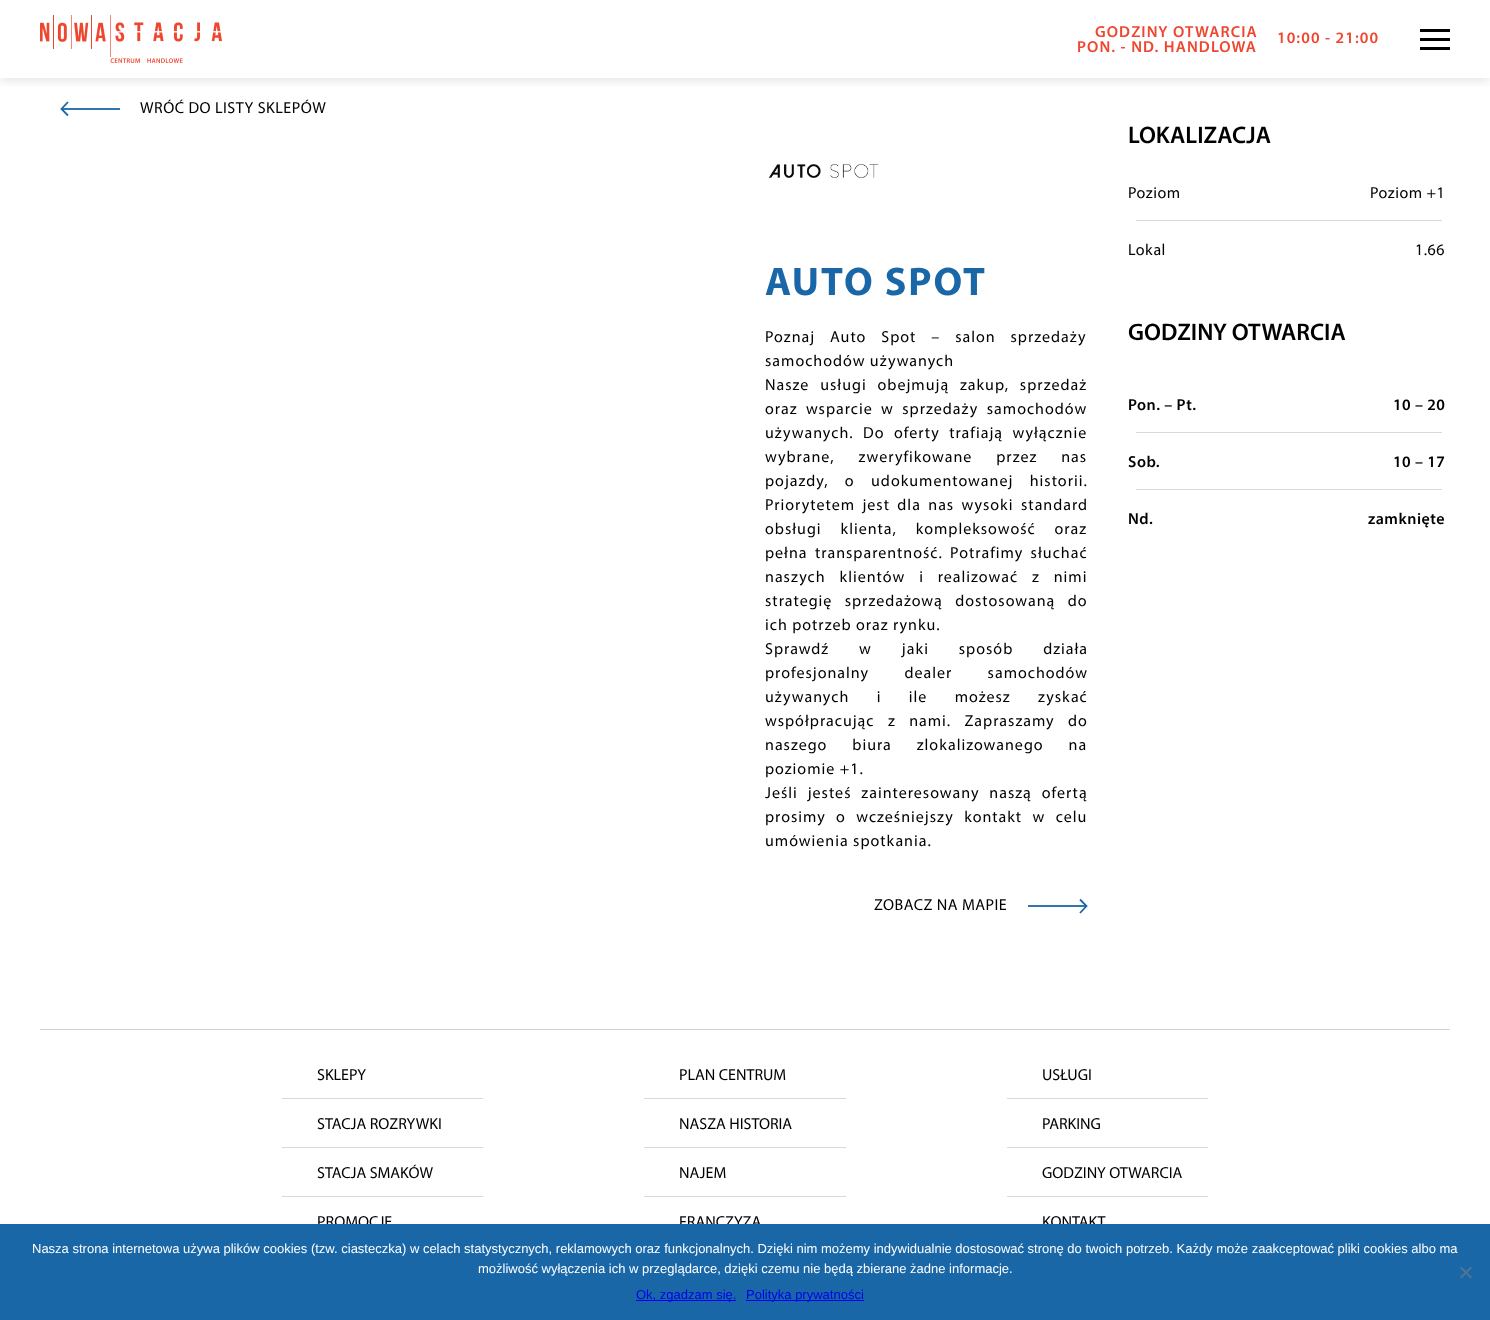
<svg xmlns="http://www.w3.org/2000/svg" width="1490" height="1320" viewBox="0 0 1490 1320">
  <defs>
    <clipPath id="clip1"><rect x="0" y="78" width="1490" height="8"/></clipPath>
  </defs>
  <rect width="100%" height="100%" fill="rgb(255,255,255)"/>
  <g clip-path="url(#clip1)">
    <rect x="0" y="3" width="1490" height="78" fill="rgba(0,0,0,0.1)" filter="blur(5.5px)"/>
  </g>
  <image x="40" y="15" width="182" height="48" href="pic1.png"/>
  <g font-family="Myriad" font-size="16" font-weight="600" letter-spacing="1.1" fill="rgb(239,70,47)">
    <text x="1095" y="37">GODZINY OTWARCIA</text>
    <text x="1077" y="52">PON. - ND. HANDLOWA</text>
    <text x="1277" y="43">10:00 - 21:00</text>
  </g>
  <rect x="1420" y="29" width="30" height="3" fill="rgb(0,0,0)"/>
  <rect x="1420" y="38" width="30" height="3" fill="rgb(0,0,0)"/>
  <rect x="1420" y="47" width="30" height="3" fill="rgb(0,0,0)"/>
  <rect x="62" y="108" width="58" height="2" fill="rgb(49,118,177)"/>
  <path d="M68 115.5L61.5 109L68 102" fill="none" stroke="rgb(26,103,168)" stroke-width="1.8"/>
  <text x="140" y="113" font-family="Myriad" font-size="16" letter-spacing="0.5" fill="rgb(0,0,0)">WRÓĆ DO LISTY SKLEPÓW</text>
  <image x="768" y="164" width="111" height="14" href="pic2.png"/>
  <text x="765" y="295" font-family="Myriad" font-size="40" font-weight="bold" letter-spacing="2" fill="rgb(26,103,168)">AUTO SPOT</text>
  <g font-family="Myriad" font-size="16" letter-spacing="1" fill="rgb(0,0,0)">
    <text>
      <tspan x="765" y="342" word-spacing="10.5">Poznaj Auto Spot – salon sprzedaży</tspan>
      <tspan x="765" y="366">samochodów używanych</tspan>
      <tspan x="765" y="390" word-spacing="6.5">Nasze usługi obejmują zakup, sprzedaż</tspan>
      <tspan x="765" y="414" word-spacing="4">oraz wsparcie w sprzedaży samochodów</tspan>
      <tspan x="765" y="438" word-spacing="5">używanych. Do oferty trafiają wyłącznie</tspan>
      <tspan x="765" y="462" word-spacing="19.5">wybrane, zweryfikowane przez nas</tspan>
      <tspan x="765" y="486" word-spacing="12">pojazdy, o udokumentowanej historii.</tspan>
      <tspan x="765" y="510" word-spacing="3">Priorytetem jest dla nas wysoki standard</tspan>
      <tspan x="765" y="534" word-spacing="14.5">obsługi klienta, kompleksowość oraz</tspan>
      <tspan x="765" y="558" word-spacing="3">pełna transparentność. Potrafimy słuchać</tspan>
      <tspan x="765" y="582" word-spacing="9.5">naszych klientów i realizować z nimi</tspan>
      <tspan x="765" y="606" word-spacing="8">strategię sprzedażową dostosowaną do</tspan>
      <tspan x="765" y="630">ich potrzeb oraz rynku.</tspan>
      <tspan x="765" y="654" word-spacing="25.5">Sprawdź w jaki sposób działa</tspan>
      <tspan x="765" y="678" word-spacing="31">profesjonalny dealer samochodów</tspan>
      <tspan x="765" y="702" word-spacing="23">używanych i ile możesz zyskać</tspan>
      <tspan x="765" y="726" word-spacing="9">współpracując z nami. Zapraszamy do</tspan>
      <tspan x="765" y="750" word-spacing="20.5">naszego biura zlokalizowanego na</tspan>
      <tspan x="765" y="774">poziomie +1.</tspan>
      <tspan x="765" y="798" word-spacing="5.5">Jeśli jesteś zainteresowany naszą ofertą</tspan>
      <tspan x="765" y="822" word-spacing="6">prosimy o wcześniejszy kontakt w celu</tspan>
      <tspan x="765" y="846">umówienia spotkania.</tspan>
    </text>
  </g>
  <text x="874" y="910" font-family="Myriad" font-size="16" letter-spacing="0.5" fill="rgb(0,0,0)">ZOBACZ NA MAPIE</text>
  <rect x="1028" y="905" width="59" height="2" fill="rgb(49,118,177)"/>
  <path d="M1080 899.5L1086.5 906L1080 913" fill="none" stroke="rgb(26,103,168)" stroke-width="1.8"/>
  <text x="1128" y="143" font-family="Myriad" font-size="24" font-weight="600" fill="rgb(0,0,0)">LOKALIZACJA</text>
  <g font-family="Myriad" font-size="16" letter-spacing="0.5" fill="rgb(0,0,0)">
    <text x="1128" y="198">Poziom</text>
    <text x="1370" y="198">Poziom +1</text>
  </g>
  <rect x="1136" y="220" width="306" height="1" fill="rgb(217,217,217)"/>
  <g font-family="Myriad" font-size="16" letter-spacing="0.5" fill="rgb(0,0,0)">
    <text x="1128" y="255">Lokal</text>
    <text x="1415" y="255">1.66</text>
  </g>
  <text x="1128" y="340" font-family="Myriad" font-size="24" font-weight="600" fill="rgb(0,0,0)">GODZINY OTWARCIA</text>
  <g font-family="Myriad" font-size="16" font-weight="600" letter-spacing="0.5" fill="rgb(0,0,0)">
    <text x="1128" y="410">Pon. – Pt.</text>
    <text x="1393" y="410">10 – 20</text>
  </g>
  <rect x="1136" y="432" width="306" height="1" fill="rgb(217,217,217)"/>
  <g font-family="Myriad" font-size="16" font-weight="600" letter-spacing="0.5" fill="rgb(0,0,0)">
    <text x="1128" y="467">Sob.</text>
    <text x="1393" y="467">10 – 17</text>
  </g>
  <rect x="1136" y="489" width="306" height="1" fill="rgb(217,217,217)"/>
  <g font-family="Myriad" font-size="16" font-weight="600" letter-spacing="0.5" fill="rgb(0,0,0)">
    <text x="1128" y="524">Nd.</text>
    <text x="1368" y="524">zamknięte</text>
  </g>
  <rect x="40" y="1029" width="1410" height="1" fill="rgb(211,211,211)"/>
  <text x="317" y="1080" font-family="Myriad" font-size="16" fill="rgb(0,0,0)">SKLEPY</text>
  <rect x="282" y="1098" width="201" height="1" fill="rgb(217,217,217)"/>
  <text x="317" y="1129" font-family="Myriad" font-size="16" fill="rgb(0,0,0)">STACJA ROZRYWKI</text>
  <rect x="282" y="1147" width="201" height="1" fill="rgb(217,217,217)"/>
  <text x="317" y="1178" font-family="Myriad" font-size="16" fill="rgb(0,0,0)">STACJA SMAKÓW</text>
  <rect x="282" y="1196" width="201" height="1" fill="rgb(217,217,217)"/>
  <g font-family="Myriad" font-size="16" fill="rgb(0,0,0)">
    <text x="317" y="1227">PROMOCJE</text>
    <text x="679" y="1080">PLAN CENTRUM</text>
  </g>
  <rect x="644" y="1098" width="202" height="1" fill="rgb(217,217,217)"/>
  <text x="679" y="1129" font-family="Myriad" font-size="16" fill="rgb(0,0,0)">NASZA HISTORIA</text>
  <rect x="644" y="1147" width="202" height="1" fill="rgb(217,217,217)"/>
  <text x="679" y="1178" font-family="Myriad" font-size="16" fill="rgb(0,0,0)">NAJEM</text>
  <rect x="644" y="1196" width="202" height="1" fill="rgb(217,217,217)"/>
  <g font-family="Myriad" font-size="16" fill="rgb(0,0,0)">
    <text x="679" y="1227">FRANCZYZA</text>
    <text x="1042" y="1080">USŁUGI</text>
  </g>
  <rect x="1007" y="1098" width="201" height="1" fill="rgb(217,217,217)"/>
  <text x="1042" y="1129" font-family="Myriad" font-size="16" fill="rgb(0,0,0)">PARKING</text>
  <rect x="1007" y="1147" width="201" height="1" fill="rgb(217,217,217)"/>
  <text x="1042" y="1178" font-family="Myriad" font-size="16" fill="rgb(0,0,0)">GODZINY OTWARCIA</text>
  <rect x="1007" y="1196" width="201" height="1" fill="rgb(217,217,217)"/>
  <text x="1042" y="1227" font-family="Myriad" font-size="16" fill="rgb(0,0,0)">KONTAKT</text>
  <rect x="0" y="1224" width="1490" height="96" fill="rgb(26,103,168)"/>
  <g font-family="Liberation Sans" font-size="13" fill="rgb(255,255,255)">
    <text x="32" y="1253">Nasza strona internetowa używa plików cookies (tzw. ciasteczka) w celach statystycznych, reklamowych oraz funkcjonalnych. Dzięki nim możemy indywidualnie dostosować stronę do twoich potrzeb. Każdy może zaakceptować pliki cookies albo ma</text>
    <text x="478" y="1273">możliwość wyłączenia ich w przeglądarce, dzięki czemu nie będą zbierane żadne informacje.</text>
  </g>
  <path d="M1470.5 1266.5L1472 1268L1461.5 1278.5L1460 1277Z" fill="rgb(77,116,148)"/>
  <path d="M1460 1268L1461.5 1266.5L1472 1277L1470.5 1278.5Z" fill="rgb(77,116,148)"/>
  <rect x="636" y="1300" width="100" height="1" fill="rgb(0,0,238)"/>
  <text x="636" y="1299" font-family="Liberation Sans" font-size="13" fill="rgb(0,0,238)">Ok, zgadzam się.</text>
  <rect x="746" y="1300" width="118" height="1" fill="rgb(0,0,238)"/>
  <text x="746" y="1299" font-family="Liberation Sans" font-size="13" fill="rgb(0,0,238)">Polityka prywatności</text>
</svg>
